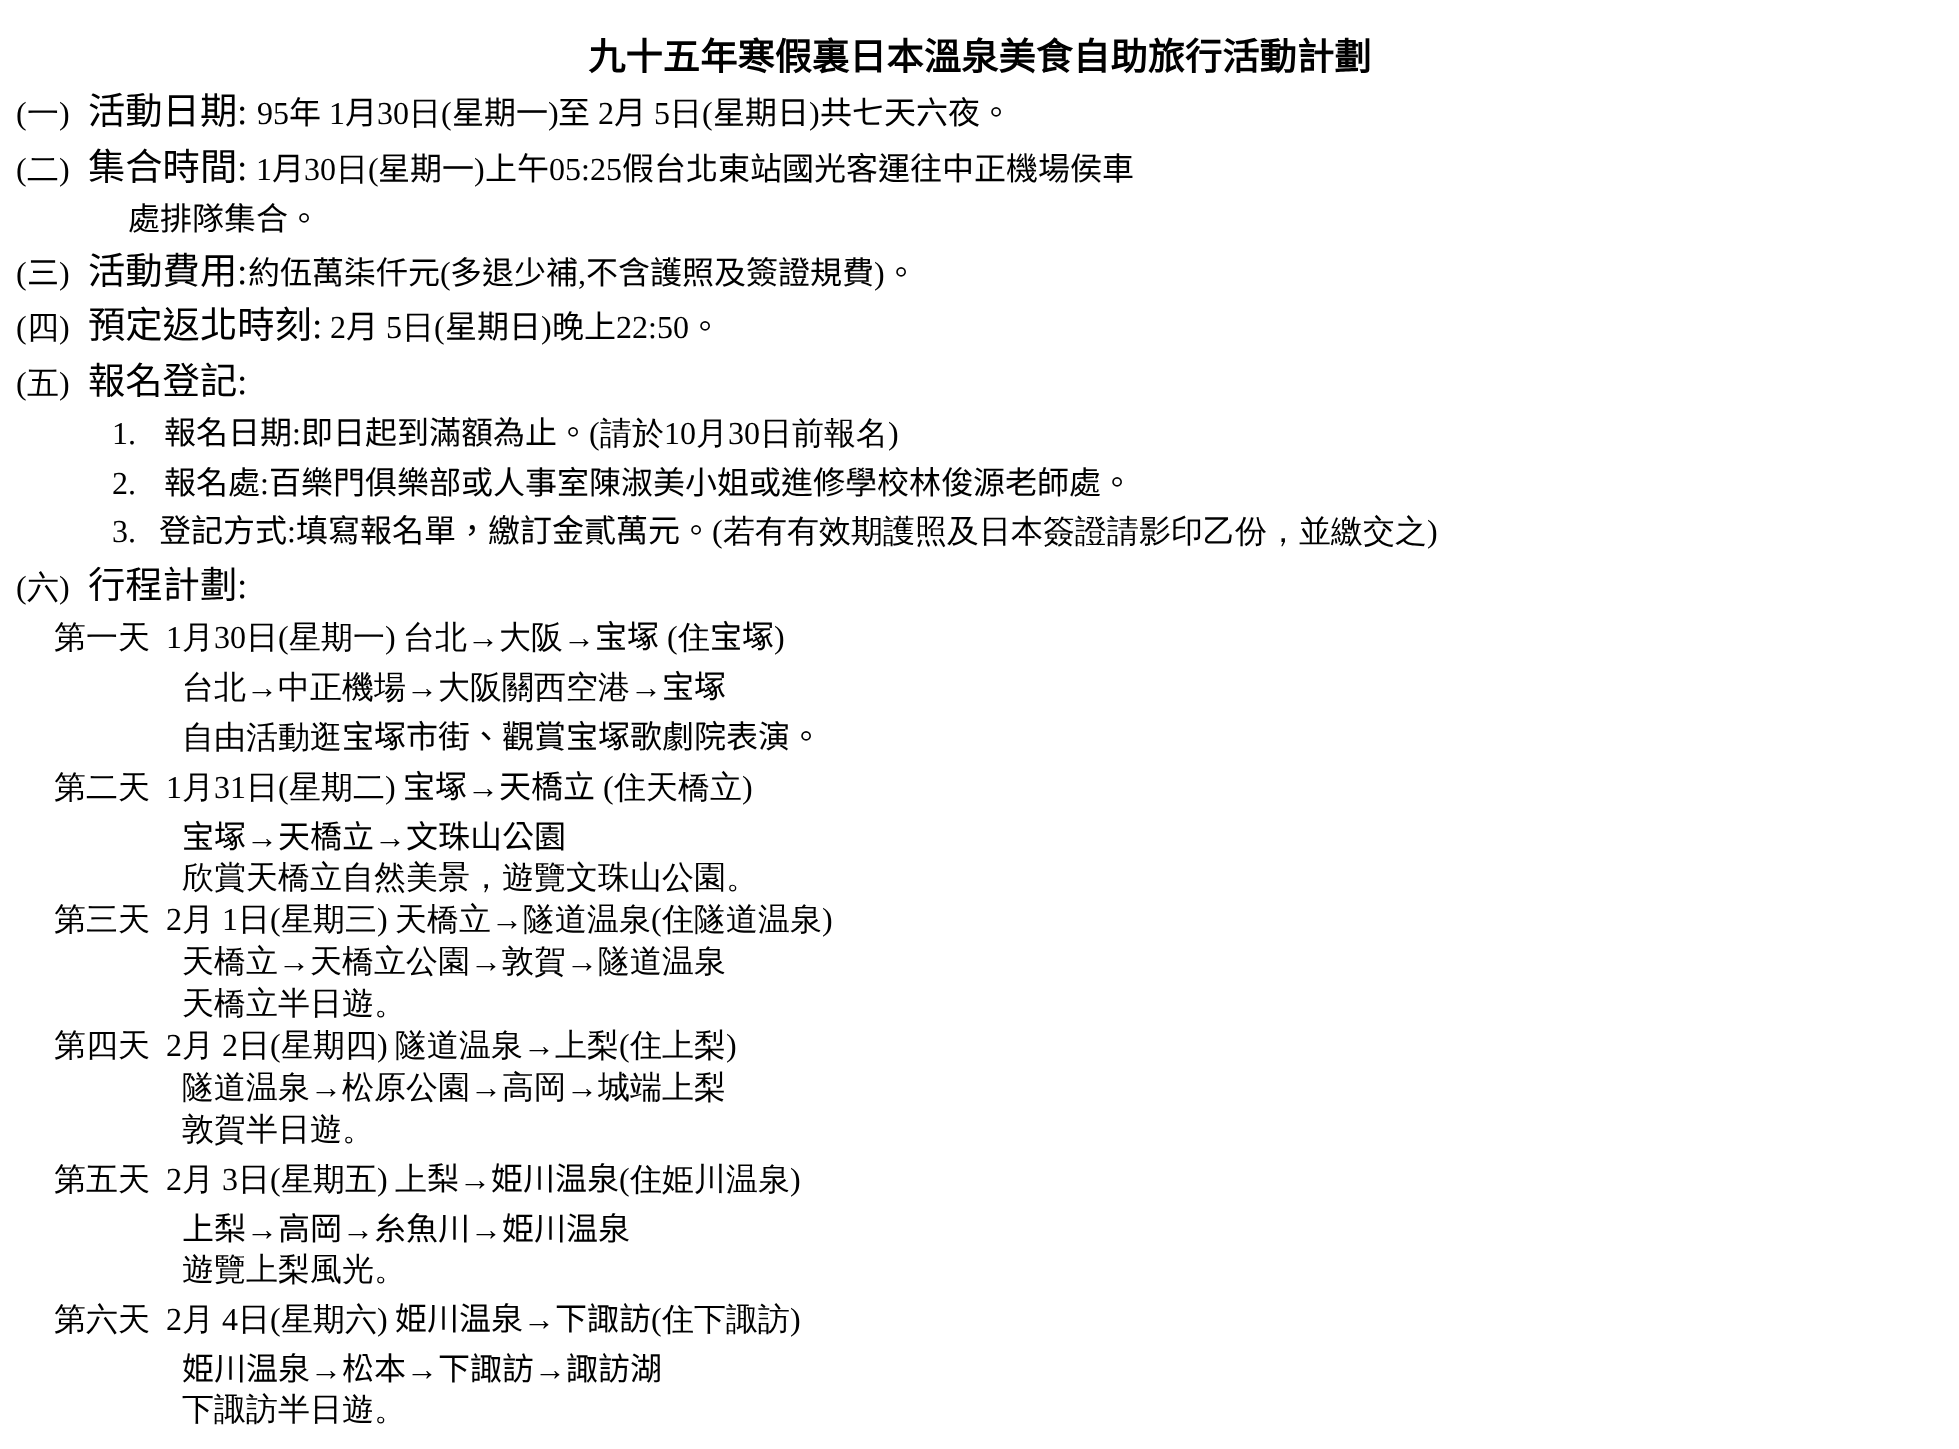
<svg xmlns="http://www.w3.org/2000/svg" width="1959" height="1449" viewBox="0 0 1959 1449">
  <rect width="100%" height="100%" fill="rgb(255,255,255)"/>
  <text x="588" y="70" font-family="Noto Sans CJK TC" font-size="37.3" font-weight="bold" fill="rgb(0,0,0)">九十五年寒假裏日本溫泉美食自助旅行活動計劃</text>
  <text x="16" y="124" font-family="Liberation Serif" font-size="32" fill="rgb(0,0,0)">(</text>
  <text x="27" y="124" font-family="WenQuanYi Zen Hei" font-size="32" font-weight="500" fill="rgb(0,0,0)">一</text>
  <text x="59" y="124" font-family="Liberation Serif" font-size="32" fill="rgb(0,0,0)">)</text>
  <text x="88" y="124" font-family="Noto Sans CJK TC" font-size="37.3" fill="rgb(0,0,0)">活動日期</text>
  <text x="237" y="124" font-family="Liberation Serif" font-size="37.3" fill="rgb(0,0,0)">:</text>
  <text x="257" y="124" font-family="Liberation Serif" font-size="32" fill="rgb(0,0,0)">95</text>
  <text x="289" y="124" font-family="Noto Sans CJK TC" font-size="32" fill="rgb(0,0,0)">年</text>
  <text x="329" y="124" font-family="Liberation Serif" font-size="32" fill="rgb(0,0,0)">1</text>
  <text x="345" y="124" font-family="Noto Sans CJK TC" font-size="32" fill="rgb(0,0,0)">月</text>
  <text x="377" y="124" font-family="Liberation Serif" font-size="32" fill="rgb(0,0,0)">30</text>
  <text x="409" y="124" font-family="WenQuanYi Zen Hei" font-size="32" font-weight="500" fill="rgb(0,0,0)">日</text>
  <text x="441" y="124" font-family="Liberation Serif" font-size="32" fill="rgb(0,0,0)">(</text>
  <text x="452" y="124" font-family="Noto Sans CJK TC" font-size="32" fill="rgb(0,0,0)">星期一</text>
  <text x="548" y="124" font-family="Liberation Serif" font-size="32" fill="rgb(0,0,0)">)</text>
  <text x="558" y="124" font-family="Noto Sans CJK TC" font-size="32" fill="rgb(0,0,0)">至</text>
  <text x="598" y="124" font-family="Liberation Serif" font-size="32" fill="rgb(0,0,0)">2</text>
  <text x="614" y="124" font-family="Noto Sans CJK TC" font-size="32" fill="rgb(0,0,0)">月</text>
  <text x="654" y="124" font-family="Liberation Serif" font-size="32" fill="rgb(0,0,0)">5</text>
  <text x="670" y="124" font-family="WenQuanYi Zen Hei" font-size="32" font-weight="500" fill="rgb(0,0,0)">日</text>
  <text x="702" y="124" font-family="Liberation Serif" font-size="32" fill="rgb(0,0,0)">(</text>
  <text x="713" y="124" font-family="Noto Sans CJK TC" font-size="32" fill="rgb(0,0,0)">星期日</text>
  <text x="809" y="124" font-family="Liberation Serif" font-size="32" fill="rgb(0,0,0)">)</text>
  <text x="820" y="124" font-family="Noto Sans CJK TC" font-size="32" fill="rgb(0,0,0)">共七天六夜。</text>
  <text x="16" y="180" font-family="Liberation Serif" font-size="32" fill="rgb(0,0,0)">(</text>
  <text x="27" y="180" font-family="WenQuanYi Zen Hei" font-size="32" font-weight="500" fill="rgb(0,0,0)">二</text>
  <text x="59" y="180" font-family="Liberation Serif" font-size="32" fill="rgb(0,0,0)">)</text>
  <text x="88" y="180" font-family="Noto Sans CJK TC" font-size="37.3" fill="rgb(0,0,0)">集合時間</text>
  <text x="237" y="180" font-family="Liberation Serif" font-size="37.3" fill="rgb(0,0,0)">:</text>
  <text x="256" y="180" font-family="Liberation Serif" font-size="32" fill="rgb(0,0,0)">1</text>
  <text x="272" y="180" font-family="Noto Sans CJK TC" font-size="32" fill="rgb(0,0,0)">月</text>
  <text x="304" y="180" font-family="Liberation Serif" font-size="32" fill="rgb(0,0,0)">30</text>
  <text x="336" y="180" font-family="WenQuanYi Zen Hei" font-size="32" font-weight="500" fill="rgb(0,0,0)">日</text>
  <text x="368" y="180" font-family="Liberation Serif" font-size="32" fill="rgb(0,0,0)">(</text>
  <text x="378" y="180" font-family="Noto Sans CJK TC" font-size="32" fill="rgb(0,0,0)">星期一</text>
  <text x="474" y="180" font-family="Liberation Serif" font-size="32" fill="rgb(0,0,0)">)</text>
  <text x="485" y="180" font-family="Noto Sans CJK TC" font-size="32" fill="rgb(0,0,0)">上午</text>
  <text x="549" y="180" font-family="Liberation Serif" font-size="32" fill="rgb(0,0,0)">05:25</text>
  <g font-family="Noto Sans CJK TC" font-size="32" fill="rgb(0,0,0)">
    <text x="622" y="180">假台北東站國光客運往中正機場侯車</text>
    <text x="128" y="230">處排隊集合。</text>
  </g>
  <text x="16" y="284" font-family="Liberation Serif" font-size="32" fill="rgb(0,0,0)">(</text>
  <text x="27" y="284" font-family="Noto Sans CJK TC" font-size="32" fill="rgb(0,0,0)">三</text>
  <text x="59" y="284" font-family="Liberation Serif" font-size="32" fill="rgb(0,0,0)">)</text>
  <text x="88" y="284" font-family="Noto Sans CJK TC" font-size="37.3" fill="rgb(0,0,0)">活動費用</text>
  <text x="237" y="284" font-family="Liberation Serif" font-size="37.3" fill="rgb(0,0,0)">:</text>
  <text x="248" y="284" font-family="Noto Sans CJK TC" font-size="32" fill="rgb(0,0,0)">約伍萬柒仟元</text>
  <text x="440" y="284" font-family="Liberation Serif" font-size="32" fill="rgb(0,0,0)">(</text>
  <g font-family="Noto Sans CJK TC" font-size="32" fill="rgb(0,0,0)">
    <text x="450" y="284">多退少補</text>
    <text x="586" y="284">不含護照及簽證規費</text>
  </g>
  <text x="874" y="284" font-family="Liberation Serif" font-size="32" fill="rgb(0,0,0)">)</text>
  <text x="885" y="284" font-family="Noto Sans CJK TC" font-size="32" fill="rgb(0,0,0)">。</text>
  <g font-family="Liberation Serif" font-size="32" fill="rgb(0,0,0)">
    <text x="578" y="284">,</text>
    <text x="16" y="338">(</text>
  </g>
  <text x="27" y="338" font-family="WenQuanYi Zen Hei" font-size="32" font-weight="500" fill="rgb(0,0,0)">四</text>
  <text x="59" y="338" font-family="Liberation Serif" font-size="32" fill="rgb(0,0,0)">)</text>
  <text x="88" y="338" font-family="Noto Sans CJK TC" font-size="37.3" fill="rgb(0,0,0)">預定返北時刻</text>
  <text x="312" y="338" font-family="Liberation Serif" font-size="37.3" fill="rgb(0,0,0)">:</text>
  <text x="330" y="338" font-family="Liberation Serif" font-size="32" fill="rgb(0,0,0)">2</text>
  <text x="346" y="338" font-family="Noto Sans CJK TC" font-size="32" fill="rgb(0,0,0)">月</text>
  <text x="386" y="338" font-family="Liberation Serif" font-size="32" fill="rgb(0,0,0)">5</text>
  <text x="402" y="338" font-family="WenQuanYi Zen Hei" font-size="32" font-weight="500" fill="rgb(0,0,0)">日</text>
  <text x="434" y="338" font-family="Liberation Serif" font-size="32" fill="rgb(0,0,0)">(</text>
  <text x="445" y="338" font-family="Noto Sans CJK TC" font-size="32" fill="rgb(0,0,0)">星期日</text>
  <text x="541" y="338" font-family="Liberation Serif" font-size="32" fill="rgb(0,0,0)">)</text>
  <text x="552" y="338" font-family="Noto Sans CJK TC" font-size="32" fill="rgb(0,0,0)">晚上</text>
  <text x="616" y="338" font-family="Liberation Serif" font-size="32" fill="rgb(0,0,0)">22:50</text>
  <text x="689" y="338" font-family="Noto Sans CJK TC" font-size="32" fill="rgb(0,0,0)">。</text>
  <text x="16" y="394" font-family="Liberation Serif" font-size="32" fill="rgb(0,0,0)">(</text>
  <text x="27" y="394" font-family="WenQuanYi Zen Hei" font-size="32" font-weight="500" fill="rgb(0,0,0)">五</text>
  <text x="59" y="394" font-family="Liberation Serif" font-size="32" fill="rgb(0,0,0)">)</text>
  <text x="88" y="394" font-family="Noto Sans CJK TC" font-size="37.3" fill="rgb(0,0,0)">報名登記</text>
  <text x="237" y="394" font-family="Liberation Serif" font-size="37.3" fill="rgb(0,0,0)">:</text>
  <text x="112" y="444" font-family="Liberation Serif" font-size="32" fill="rgb(0,0,0)">1.</text>
  <text x="164" y="444" font-family="Noto Sans CJK TC" font-size="32" fill="rgb(0,0,0)">報名日期</text>
  <text x="292" y="444" font-family="Liberation Serif" font-size="32" fill="rgb(0,0,0)">:</text>
  <text x="301" y="444" font-family="Noto Sans CJK TC" font-size="32" fill="rgb(0,0,0)">即日起到滿額為止。</text>
  <text x="589" y="444" font-family="Liberation Serif" font-size="32" fill="rgb(0,0,0)">(</text>
  <text x="600" y="444" font-family="WenQuanYi Zen Hei" font-size="32" font-weight="500" fill="rgb(0,0,0)">請於</text>
  <text x="664" y="444" font-family="Liberation Serif" font-size="32" fill="rgb(0,0,0)">10</text>
  <text x="696" y="444" font-family="WenQuanYi Zen Hei" font-size="32" font-weight="500" fill="rgb(0,0,0)">月</text>
  <text x="728" y="444" font-family="Liberation Serif" font-size="32" fill="rgb(0,0,0)">30</text>
  <text x="760" y="444" font-family="WenQuanYi Zen Hei" font-size="32" font-weight="500" fill="rgb(0,0,0)">日前報名</text>
  <g font-family="Liberation Serif" font-size="32" fill="rgb(0,0,0)">
    <text x="888" y="444">)</text>
    <text x="112" y="494">2.</text>
  </g>
  <text x="164" y="494" font-family="Noto Sans CJK TC" font-size="32" fill="rgb(0,0,0)">報名處</text>
  <text x="260" y="494" font-family="Liberation Serif" font-size="32" fill="rgb(0,0,0)">:</text>
  <text x="269" y="494" font-family="Noto Sans CJK TC" font-size="32" fill="rgb(0,0,0)">百樂門俱樂部或人事室陳淑美小姐或進修學校林俊源老師處。</text>
  <text x="112" y="542" font-family="Liberation Serif" font-size="32" fill="rgb(0,0,0)">3.</text>
  <text x="159" y="542" font-family="Noto Sans CJK TC" font-size="32" fill="rgb(0,0,0)">登記方式</text>
  <text x="287" y="542" font-family="Liberation Serif" font-size="32" fill="rgb(0,0,0)">:</text>
  <text x="296" y="542" font-family="Noto Sans CJK TC" font-size="32" fill="rgb(0,0,0)">填寫報名單，繳訂金貳萬元。</text>
  <text x="712" y="542" font-family="Liberation Serif" font-size="32" fill="rgb(0,0,0)">(</text>
  <text x="723" y="542" font-family="WenQuanYi Zen Hei" font-size="32" font-weight="500" fill="rgb(0,0,0)">若有有效期護照及日本簽證請影印乙份，並繳交之</text>
  <g font-family="Liberation Serif" font-size="32" fill="rgb(0,0,0)">
    <text x="1427" y="542">)</text>
    <text x="16" y="598">(</text>
  </g>
  <text x="27" y="598" font-family="WenQuanYi Zen Hei" font-size="32" font-weight="500" fill="rgb(0,0,0)">六</text>
  <text x="59" y="598" font-family="Liberation Serif" font-size="32" fill="rgb(0,0,0)">)</text>
  <text x="88" y="598" font-family="Noto Sans CJK TC" font-size="37.3" fill="rgb(0,0,0)">行程計劃</text>
  <text x="237" y="598" font-family="Liberation Serif" font-size="37.3" fill="rgb(0,0,0)">:</text>
  <text x="54" y="648" font-family="WenQuanYi Zen Hei" font-size="32" font-weight="500" fill="rgb(0,0,0)">第一天</text>
  <text x="166" y="648" font-family="Liberation Serif" font-size="32" fill="rgb(0,0,0)">1</text>
  <text x="182" y="648" font-family="WenQuanYi Zen Hei" font-size="32" font-weight="500" fill="rgb(0,0,0)">月</text>
  <text x="214" y="648" font-family="Liberation Serif" font-size="32" fill="rgb(0,0,0)">30</text>
  <text x="246" y="648" font-family="WenQuanYi Zen Hei" font-size="32" font-weight="500" fill="rgb(0,0,0)">日</text>
  <text x="278" y="648" font-family="Liberation Serif" font-size="32" fill="rgb(0,0,0)">(</text>
  <text x="289" y="648" font-family="WenQuanYi Zen Hei" font-size="32" font-weight="500" fill="rgb(0,0,0)">星期一</text>
  <text x="385" y="648" font-family="Liberation Serif" font-size="32" fill="rgb(0,0,0)">)</text>
  <text x="403" y="648" font-family="WenQuanYi Zen Hei" font-size="32" font-weight="500" fill="rgb(0,0,0)">台北</text>
  <text x="467" y="648" font-family="Liberation Serif" font-size="32" fill="rgb(0,0,0)">→</text>
  <text x="499" y="648" font-family="WenQuanYi Zen Hei" font-size="32" font-weight="500" fill="rgb(0,0,0)">大阪</text>
  <text x="563" y="648" font-family="Liberation Serif" font-size="32" fill="rgb(0,0,0)">→</text>
  <text x="595" y="648" font-family="Noto Sans CJK TC" font-size="32" fill="rgb(0,0,0)">宝塚</text>
  <text x="667" y="648" font-family="Liberation Serif" font-size="32" fill="rgb(0,0,0)">(</text>
  <text x="678" y="648" font-family="WenQuanYi Zen Hei" font-size="32" font-weight="500" fill="rgb(0,0,0)">住</text>
  <text x="710" y="648" font-family="Noto Sans CJK TC" font-size="32" fill="rgb(0,0,0)">宝塚</text>
  <text x="774" y="648" font-family="Liberation Serif" font-size="32" fill="rgb(0,0,0)">)</text>
  <text x="182" y="698" font-family="WenQuanYi Zen Hei" font-size="32" font-weight="500" fill="rgb(0,0,0)">台北</text>
  <text x="246" y="698" font-family="Liberation Serif" font-size="32" fill="rgb(0,0,0)">→</text>
  <text x="278" y="698" font-family="WenQuanYi Zen Hei" font-size="32" font-weight="500" fill="rgb(0,0,0)">中正機場</text>
  <text x="406" y="698" font-family="Liberation Serif" font-size="32" fill="rgb(0,0,0)">→</text>
  <text x="438" y="698" font-family="WenQuanYi Zen Hei" font-size="32" font-weight="500" fill="rgb(0,0,0)">大阪關西空港</text>
  <text x="630" y="698" font-family="Liberation Serif" font-size="32" fill="rgb(0,0,0)">→</text>
  <text x="662" y="698" font-family="Noto Sans CJK TC" font-size="32" fill="rgb(0,0,0)">宝塚</text>
  <text x="182" y="748" font-family="WenQuanYi Zen Hei" font-size="32" font-weight="500" fill="rgb(0,0,0)">自由活動逛</text>
  <text x="342" y="748" font-family="Noto Sans CJK TC" font-size="32" fill="rgb(0,0,0)">宝塚市街、觀賞宝塚歌劇院表演。</text>
  <text x="54" y="798" font-family="WenQuanYi Zen Hei" font-size="32" font-weight="500" fill="rgb(0,0,0)">第二天</text>
  <text x="166" y="798" font-family="Liberation Serif" font-size="32" fill="rgb(0,0,0)">1</text>
  <text x="182" y="798" font-family="WenQuanYi Zen Hei" font-size="32" font-weight="500" fill="rgb(0,0,0)">月</text>
  <text x="214" y="798" font-family="Liberation Serif" font-size="32" fill="rgb(0,0,0)">31</text>
  <text x="246" y="798" font-family="WenQuanYi Zen Hei" font-size="32" font-weight="500" fill="rgb(0,0,0)">日</text>
  <text x="278" y="798" font-family="Liberation Serif" font-size="32" fill="rgb(0,0,0)">(</text>
  <text x="289" y="798" font-family="WenQuanYi Zen Hei" font-size="32" font-weight="500" fill="rgb(0,0,0)">星期二</text>
  <text x="385" y="798" font-family="Liberation Serif" font-size="32" fill="rgb(0,0,0)">)</text>
  <text x="403" y="798" font-family="Noto Sans CJK TC" font-size="32" fill="rgb(0,0,0)">宝塚</text>
  <text x="467" y="798" font-family="Liberation Serif" font-size="32" fill="rgb(0,0,0)">→</text>
  <text x="499" y="798" font-family="Noto Sans CJK TC" font-size="32" fill="rgb(0,0,0)">天橋立</text>
  <text x="603" y="798" font-family="Liberation Serif" font-size="32" fill="rgb(0,0,0)">(</text>
  <text x="614" y="798" font-family="WenQuanYi Zen Hei" font-size="32" font-weight="500" fill="rgb(0,0,0)">住天橋立</text>
  <text x="742" y="798" font-family="Liberation Serif" font-size="32" fill="rgb(0,0,0)">)</text>
  <text x="182" y="848" font-family="Noto Sans CJK TC" font-size="32" fill="rgb(0,0,0)">宝塚</text>
  <text x="246" y="848" font-family="Liberation Serif" font-size="32" fill="rgb(0,0,0)">→</text>
  <text x="278" y="848" font-family="Noto Sans CJK TC" font-size="32" fill="rgb(0,0,0)">天橋立</text>
  <text x="374" y="848" font-family="Liberation Serif" font-size="32" fill="rgb(0,0,0)">→</text>
  <text x="406" y="848" font-family="Noto Sans CJK TC" font-size="32" fill="rgb(0,0,0)">文珠山公園</text>
  <g font-family="WenQuanYi Zen Hei" font-size="32" font-weight="500" fill="rgb(0,0,0)">
    <text x="182" y="888">欣賞天橋立自然美景，遊覽文珠山公園。</text>
    <text x="54" y="930">第三天</text>
  </g>
  <text x="166" y="930" font-family="Liberation Serif" font-size="32" fill="rgb(0,0,0)">2</text>
  <text x="182" y="930" font-family="WenQuanYi Zen Hei" font-size="32" font-weight="500" fill="rgb(0,0,0)">月</text>
  <text x="222" y="930" font-family="Liberation Serif" font-size="32" fill="rgb(0,0,0)">1</text>
  <text x="238" y="930" font-family="WenQuanYi Zen Hei" font-size="32" font-weight="500" fill="rgb(0,0,0)">日</text>
  <text x="270" y="930" font-family="Liberation Serif" font-size="32" fill="rgb(0,0,0)">(</text>
  <text x="281" y="930" font-family="WenQuanYi Zen Hei" font-size="32" font-weight="500" fill="rgb(0,0,0)">星期三</text>
  <text x="377" y="930" font-family="Liberation Serif" font-size="32" fill="rgb(0,0,0)">)</text>
  <text x="395" y="930" font-family="WenQuanYi Zen Hei" font-size="32" font-weight="500" fill="rgb(0,0,0)">天橋立</text>
  <text x="491" y="930" font-family="Liberation Serif" font-size="32" fill="rgb(0,0,0)">→</text>
  <text x="523" y="930" font-family="WenQuanYi Zen Hei" font-size="32" font-weight="500" fill="rgb(0,0,0)">隧道温泉</text>
  <text x="651" y="930" font-family="Liberation Serif" font-size="32" fill="rgb(0,0,0)">(</text>
  <text x="662" y="930" font-family="WenQuanYi Zen Hei" font-size="32" font-weight="500" fill="rgb(0,0,0)">住隧道温泉</text>
  <text x="822" y="930" font-family="Liberation Serif" font-size="32" fill="rgb(0,0,0)">)</text>
  <text x="182" y="972" font-family="WenQuanYi Zen Hei" font-size="32" font-weight="500" fill="rgb(0,0,0)">天橋立</text>
  <text x="278" y="972" font-family="Liberation Serif" font-size="32" fill="rgb(0,0,0)">→</text>
  <text x="310" y="972" font-family="WenQuanYi Zen Hei" font-size="32" font-weight="500" fill="rgb(0,0,0)">天橋立公園</text>
  <text x="470" y="972" font-family="Liberation Serif" font-size="32" fill="rgb(0,0,0)">→</text>
  <text x="502" y="972" font-family="WenQuanYi Zen Hei" font-size="32" font-weight="500" fill="rgb(0,0,0)">敦賀</text>
  <text x="566" y="972" font-family="Liberation Serif" font-size="32" fill="rgb(0,0,0)">→</text>
  <g font-family="WenQuanYi Zen Hei" font-size="32" font-weight="500" fill="rgb(0,0,0)">
    <text x="598" y="972">隧道温泉</text>
    <text x="182" y="1014">天橋立半日遊。</text>
    <text x="54" y="1056">第四天</text>
  </g>
  <text x="166" y="1056" font-family="Liberation Serif" font-size="32" fill="rgb(0,0,0)">2</text>
  <text x="182" y="1056" font-family="WenQuanYi Zen Hei" font-size="32" font-weight="500" fill="rgb(0,0,0)">月</text>
  <text x="222" y="1056" font-family="Liberation Serif" font-size="32" fill="rgb(0,0,0)">2</text>
  <text x="238" y="1056" font-family="WenQuanYi Zen Hei" font-size="32" font-weight="500" fill="rgb(0,0,0)">日</text>
  <text x="270" y="1056" font-family="Liberation Serif" font-size="32" fill="rgb(0,0,0)">(</text>
  <text x="281" y="1056" font-family="WenQuanYi Zen Hei" font-size="32" font-weight="500" fill="rgb(0,0,0)">星期四</text>
  <text x="377" y="1056" font-family="Liberation Serif" font-size="32" fill="rgb(0,0,0)">)</text>
  <text x="395" y="1056" font-family="WenQuanYi Zen Hei" font-size="32" font-weight="500" fill="rgb(0,0,0)">隧道温泉</text>
  <text x="523" y="1056" font-family="Liberation Serif" font-size="32" fill="rgb(0,0,0)">→</text>
  <text x="555" y="1056" font-family="WenQuanYi Zen Hei" font-size="32" font-weight="500" fill="rgb(0,0,0)">上梨</text>
  <text x="619" y="1056" font-family="Liberation Serif" font-size="32" fill="rgb(0,0,0)">(</text>
  <text x="630" y="1056" font-family="WenQuanYi Zen Hei" font-size="32" font-weight="500" fill="rgb(0,0,0)">住上梨</text>
  <text x="726" y="1056" font-family="Liberation Serif" font-size="32" fill="rgb(0,0,0)">)</text>
  <text x="182" y="1098" font-family="WenQuanYi Zen Hei" font-size="32" font-weight="500" fill="rgb(0,0,0)">隧道温泉</text>
  <text x="310" y="1098" font-family="Liberation Serif" font-size="32" fill="rgb(0,0,0)">→</text>
  <text x="342" y="1098" font-family="WenQuanYi Zen Hei" font-size="32" font-weight="500" fill="rgb(0,0,0)">松原公園</text>
  <text x="470" y="1098" font-family="Liberation Serif" font-size="32" fill="rgb(0,0,0)">→</text>
  <text x="502" y="1098" font-family="WenQuanYi Zen Hei" font-size="32" font-weight="500" fill="rgb(0,0,0)">高岡</text>
  <text x="566" y="1098" font-family="Liberation Serif" font-size="32" fill="rgb(0,0,0)">→</text>
  <g font-family="WenQuanYi Zen Hei" font-size="32" font-weight="500" fill="rgb(0,0,0)">
    <text x="598" y="1098">城端上梨</text>
    <text x="182" y="1140">敦賀半日遊。</text>
    <text x="54" y="1190">第五天</text>
  </g>
  <text x="166" y="1190" font-family="Liberation Serif" font-size="32" fill="rgb(0,0,0)">2</text>
  <text x="182" y="1190" font-family="WenQuanYi Zen Hei" font-size="32" font-weight="500" fill="rgb(0,0,0)">月</text>
  <text x="222" y="1190" font-family="Liberation Serif" font-size="32" fill="rgb(0,0,0)">3</text>
  <text x="238" y="1190" font-family="WenQuanYi Zen Hei" font-size="32" font-weight="500" fill="rgb(0,0,0)">日</text>
  <text x="270" y="1190" font-family="Liberation Serif" font-size="32" fill="rgb(0,0,0)">(</text>
  <text x="281" y="1190" font-family="WenQuanYi Zen Hei" font-size="32" font-weight="500" fill="rgb(0,0,0)">星期五</text>
  <text x="377" y="1190" font-family="Liberation Serif" font-size="32" fill="rgb(0,0,0)">)</text>
  <text x="395" y="1190" font-family="WenQuanYi Zen Hei" font-size="32" font-weight="500" fill="rgb(0,0,0)">上</text>
  <text x="427" y="1190" font-family="Noto Sans CJK TC" font-size="32" fill="rgb(0,0,0)">梨</text>
  <text x="459" y="1190" font-family="Liberation Serif" font-size="32" fill="rgb(0,0,0)">→</text>
  <text x="491" y="1190" font-family="Noto Sans CJK TC" font-size="32" fill="rgb(0,0,0)">姫川温泉</text>
  <text x="619" y="1190" font-family="Liberation Serif" font-size="32" fill="rgb(0,0,0)">(</text>
  <text x="630" y="1190" font-family="WenQuanYi Zen Hei" font-size="32" font-weight="500" fill="rgb(0,0,0)">住姫川温泉</text>
  <text x="790" y="1190" font-family="Liberation Serif" font-size="32" fill="rgb(0,0,0)">)</text>
  <text x="182" y="1240" font-family="Noto Sans CJK TC" font-size="32" fill="rgb(0,0,0)">上梨</text>
  <text x="246" y="1240" font-family="Liberation Serif" font-size="32" fill="rgb(0,0,0)">→</text>
  <text x="278" y="1240" font-family="Noto Sans CJK TC" font-size="32" fill="rgb(0,0,0)">高岡</text>
  <text x="342" y="1240" font-family="Liberation Serif" font-size="32" fill="rgb(0,0,0)">→</text>
  <text x="374" y="1240" font-family="Noto Sans CJK TC" font-size="32" fill="rgb(0,0,0)">糸魚川</text>
  <text x="470" y="1240" font-family="Liberation Serif" font-size="32" fill="rgb(0,0,0)">→</text>
  <text x="502" y="1240" font-family="Noto Sans CJK TC" font-size="32" fill="rgb(0,0,0)">姫川温泉</text>
  <g font-family="WenQuanYi Zen Hei" font-size="32" font-weight="500" fill="rgb(0,0,0)">
    <text x="182" y="1280">遊覽上梨風光。</text>
    <text x="54" y="1330">第六天</text>
  </g>
  <text x="166" y="1330" font-family="Liberation Serif" font-size="32" fill="rgb(0,0,0)">2</text>
  <text x="182" y="1330" font-family="WenQuanYi Zen Hei" font-size="32" font-weight="500" fill="rgb(0,0,0)">月</text>
  <text x="222" y="1330" font-family="Liberation Serif" font-size="32" fill="rgb(0,0,0)">4</text>
  <text x="238" y="1330" font-family="WenQuanYi Zen Hei" font-size="32" font-weight="500" fill="rgb(0,0,0)">日</text>
  <text x="270" y="1330" font-family="Liberation Serif" font-size="32" fill="rgb(0,0,0)">(</text>
  <text x="281" y="1330" font-family="WenQuanYi Zen Hei" font-size="32" font-weight="500" fill="rgb(0,0,0)">星期六</text>
  <text x="377" y="1330" font-family="Liberation Serif" font-size="32" fill="rgb(0,0,0)">)</text>
  <text x="395" y="1330" font-family="Noto Sans CJK TC" font-size="32" fill="rgb(0,0,0)">姫川温泉</text>
  <text x="523" y="1330" font-family="Liberation Serif" font-size="32" fill="rgb(0,0,0)">→</text>
  <text x="555" y="1330" font-family="Noto Sans CJK TC" font-size="32" fill="rgb(0,0,0)">下諏訪</text>
  <text x="651" y="1330" font-family="Liberation Serif" font-size="32" fill="rgb(0,0,0)">(</text>
  <text x="662" y="1330" font-family="WenQuanYi Zen Hei" font-size="32" font-weight="500" fill="rgb(0,0,0)">住下諏訪</text>
  <text x="790" y="1330" font-family="Liberation Serif" font-size="32" fill="rgb(0,0,0)">)</text>
  <text x="182" y="1380" font-family="Noto Sans CJK TC" font-size="32" fill="rgb(0,0,0)">姫川温泉</text>
  <text x="310" y="1380" font-family="Liberation Serif" font-size="32" fill="rgb(0,0,0)">→</text>
  <text x="342" y="1380" font-family="Noto Sans CJK TC" font-size="32" fill="rgb(0,0,0)">松本</text>
  <text x="406" y="1380" font-family="Liberation Serif" font-size="32" fill="rgb(0,0,0)">→</text>
  <text x="438" y="1380" font-family="Noto Sans CJK TC" font-size="32" fill="rgb(0,0,0)">下諏訪</text>
  <text x="534" y="1380" font-family="Liberation Serif" font-size="32" fill="rgb(0,0,0)">→</text>
  <text x="566" y="1380" font-family="Noto Sans CJK TC" font-size="32" fill="rgb(0,0,0)">諏訪湖</text>
  <text x="182" y="1420" font-family="WenQuanYi Zen Hei" font-size="32" font-weight="500" fill="rgb(0,0,0)">下諏訪半日遊。</text>
</svg>
